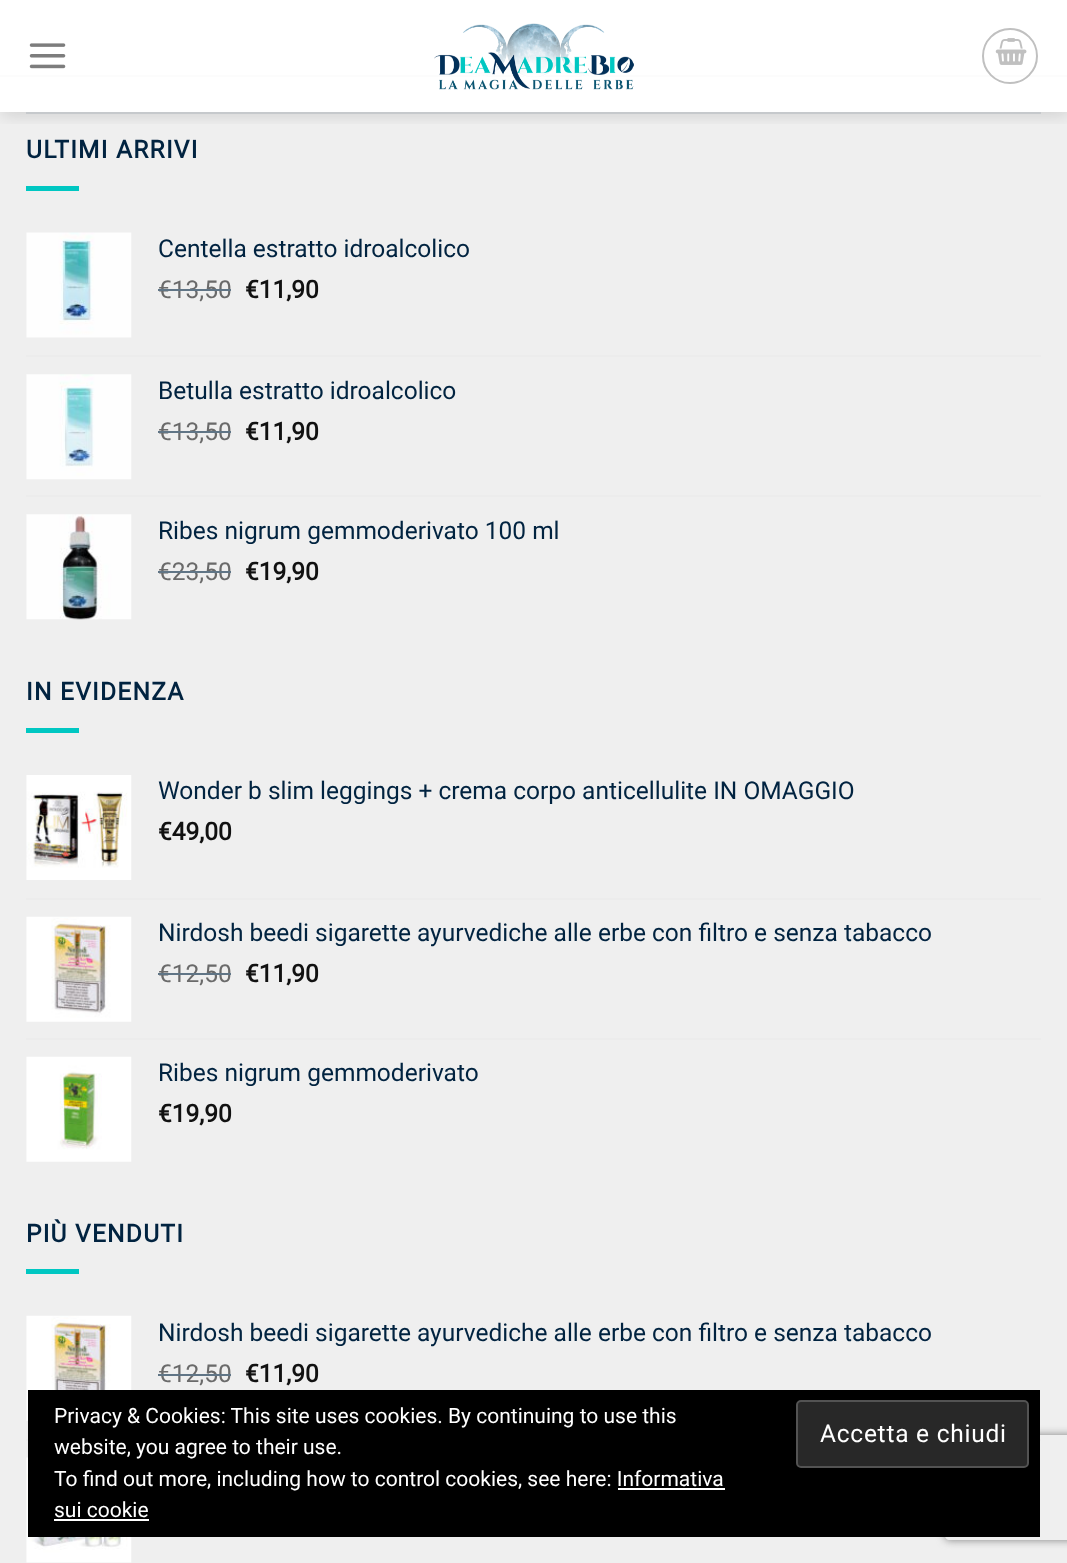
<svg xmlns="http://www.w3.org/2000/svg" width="1067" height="1563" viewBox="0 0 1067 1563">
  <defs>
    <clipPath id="clip1"><rect x="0" y="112" width="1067" height="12"/></clipPath>
    <clipPath id="clip2"><path d="M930 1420H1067V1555H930ZM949 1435H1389C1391 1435 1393 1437 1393 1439V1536C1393 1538 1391 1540 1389 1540H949C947 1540 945 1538 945 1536V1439C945 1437 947 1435 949 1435Z" clip-rule="evenodd"/></clipPath>
  </defs>
  <rect width="100%" height="100%" fill="rgb(255,255,255)"/>
  <rect x="0" y="112" width="1067" height="1451" fill="rgb(239,239,239)"/>
  <rect x="0" y="75" width="1067" height="2" fill="rgb(252,252,252)"/>
  <g clip-path="url(#clip1)">
    <rect x="2" y="2" width="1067" height="112" fill="rgba(0,0,0,0.15)" filter="blur(9px)"/>
  </g>
  <image x="29" y="43" width="37" height="26" href="pic1.png"/>
  <image x="434" y="23" width="200" height="67" href="pic2.png"/>
  <circle cx="1010" cy="56" r="27" fill="none" stroke="rgb(192,192,192)" stroke-width="2"/>
  <image x="995" y="38" width="32" height="27" href="pic3.png"/>
  <rect x="26" y="112" width="1015" height="2" fill="rgb(198,201,204)"/>
  <text x="26" y="158" font-family="Roboto" font-size="24.5" font-weight="bold" letter-spacing="1.25" fill="rgb(1,35,64)">ULTIMI ARRIVI</text>
  <rect x="26" y="186" width="53" height="5" fill="rgb(0,199,194)"/>
  <image x="26" y="232" width="106" height="106" href="pic4.png"/>
  <text x="158" y="257" font-family="Roboto" font-size="24.5" fill="rgb(1,35,64)">Centella estratto idroalcolico</text>
  <text x="158" y="298" font-family="Roboto" font-size="24.5" fill="rgb(106,106,106)">€13,50</text>
  <rect x="158" y="289" width="73" height="2" fill="rgb(96,117,134)"/>
  <text x="245" y="298" font-family="Roboto" font-size="24.5" font-weight="bold" fill="rgb(17,17,17)">€11,90</text>
  <rect x="26" y="355" width="1015" height="2" fill="rgb(236,236,236)"/>
  <image x="26" y="374" width="106" height="106" href="pic5.png"/>
  <text x="158" y="399" font-family="Roboto" font-size="24.5" fill="rgb(1,35,64)">Betulla estratto idroalcolico</text>
  <text x="158" y="440" font-family="Roboto" font-size="24.5" fill="rgb(106,106,106)">€13,50</text>
  <rect x="158" y="431" width="73" height="2" fill="rgb(96,117,134)"/>
  <text x="245" y="440" font-family="Roboto" font-size="24.5" font-weight="bold" fill="rgb(17,17,17)">€11,90</text>
  <rect x="26" y="495" width="1015" height="2" fill="rgb(236,236,236)"/>
  <image x="26" y="514" width="106" height="106" href="pic6.png"/>
  <text x="158" y="539" font-family="Roboto" font-size="24.5" fill="rgb(1,35,64)">Ribes nigrum gemmoderivato 100 ml</text>
  <text x="158" y="580" font-family="Roboto" font-size="24.5" fill="rgb(106,106,106)">€23,50</text>
  <rect x="158" y="571" width="73" height="2" fill="rgb(96,117,134)"/>
  <text x="245" y="580" font-family="Roboto" font-size="24.5" font-weight="bold" fill="rgb(17,17,17)">€19,90</text>
  <text x="26" y="700" font-family="Roboto" font-size="24.5" font-weight="bold" letter-spacing="1.25" fill="rgb(1,35,64)">IN EVIDENZA</text>
  <rect x="26" y="728" width="53" height="5" fill="rgb(0,199,194)"/>
  <image x="26" y="775" width="106" height="105" href="pic7.png"/>
  <text x="158" y="799" font-family="Roboto" font-size="24.5" fill="rgb(1,35,64)">Wonder b slim leggings + crema corpo anticellulite IN OMAGGIO</text>
  <text x="158" y="840" font-family="Roboto" font-size="24.5" font-weight="bold" fill="rgb(17,17,17)">€49,00</text>
  <rect x="26" y="898" width="1015" height="2" fill="rgb(236,236,236)"/>
  <image x="26" y="916" width="106" height="106" href="pic8.png"/>
  <text x="158" y="941" font-family="Roboto" font-size="24.5" fill="rgb(1,35,64)">Nirdosh beedi sigarette ayurvediche alle erbe con filtro e senza tabacco</text>
  <text x="158" y="982" font-family="Roboto" font-size="24.5" fill="rgb(106,106,106)">€12,50</text>
  <rect x="158" y="973" width="73" height="2" fill="rgb(96,117,134)"/>
  <text x="245" y="982" font-family="Roboto" font-size="24.5" font-weight="bold" fill="rgb(17,17,17)">€11,90</text>
  <rect x="26" y="1038" width="1015" height="2" fill="rgb(236,236,236)"/>
  <image x="26" y="1056" width="106" height="106" href="pic9.png"/>
  <text x="158" y="1081" font-family="Roboto" font-size="24.5" fill="rgb(1,35,64)">Ribes nigrum gemmoderivato</text>
  <text x="158" y="1122" font-family="Roboto" font-size="24.5" font-weight="bold" fill="rgb(17,17,17)">€19,90</text>
  <text x="26" y="1242" font-family="Roboto" font-size="24.5" font-weight="bold" letter-spacing="1.25" fill="rgb(1,35,64)">PIÙ VENDUTI</text>
  <rect x="26" y="1269" width="53" height="5" fill="rgb(0,199,194)"/>
  <image x="26" y="1315" width="106" height="106" href="pic10.png"/>
  <text x="158" y="1341" font-family="Roboto" font-size="24.5" fill="rgb(1,35,64)">Nirdosh beedi sigarette ayurvediche alle erbe con filtro e senza tabacco</text>
  <text x="158" y="1382" font-family="Roboto" font-size="24.5" fill="rgb(106,106,106)">€12,50</text>
  <rect x="158" y="1374" width="73" height="2" fill="rgb(96,117,134)"/>
  <text x="245" y="1382" font-family="Roboto" font-size="24.5" font-weight="bold" fill="rgb(17,17,17)">€11,90</text>
  <rect x="26" y="1439" width="1015" height="2" fill="rgb(236,236,236)"/>
  <image x="26" y="1457" width="106" height="106" href="pic11.png"/>
  <g clip-path="url(#clip2)">
    <rect x="945" y="1435" width="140" height="105" rx="4" fill="rgb(128,128,128)" filter="blur(4.5px)"/>
  </g>
  <rect x="28" y="1390" width="1012" height="147" fill="rgb(0,0,0)"/>
  <text x="54" y="1423" font-family="Roboto" font-size="21" fill="rgb(255,255,255)">Privacy &amp; Cookies: This site uses cookies. By continuing to use this</text>
  <rect x="797" y="1401" width="231" height="66" rx="4" fill="rgb(40,40,40)" stroke="rgb(83,83,83)" stroke-width="2"/>
  <text x="820" y="1442" font-family="Roboto" font-size="24.5" letter-spacing="0.75" fill="rgb(255,255,255)">Accetta e chiudi</text>
  <g font-family="Roboto" font-size="21" fill="rgb(255,255,255)">
    <text>
      <tspan x="54" y="1454">website, you agree to their use.</tspan>
      <tspan x="54" y="1486">To find out more, including how to control cookies, see here: Informativa</tspan>
      <tspan x="54" y="1517">sui cookie</tspan>
    </text>
  </g>
  <rect x="618" y="1488" width="107" height="2" fill="rgb(255,255,255)"/>
  <rect x="54" y="1519" width="95" height="2" fill="rgb(255,255,255)"/>
</svg>
